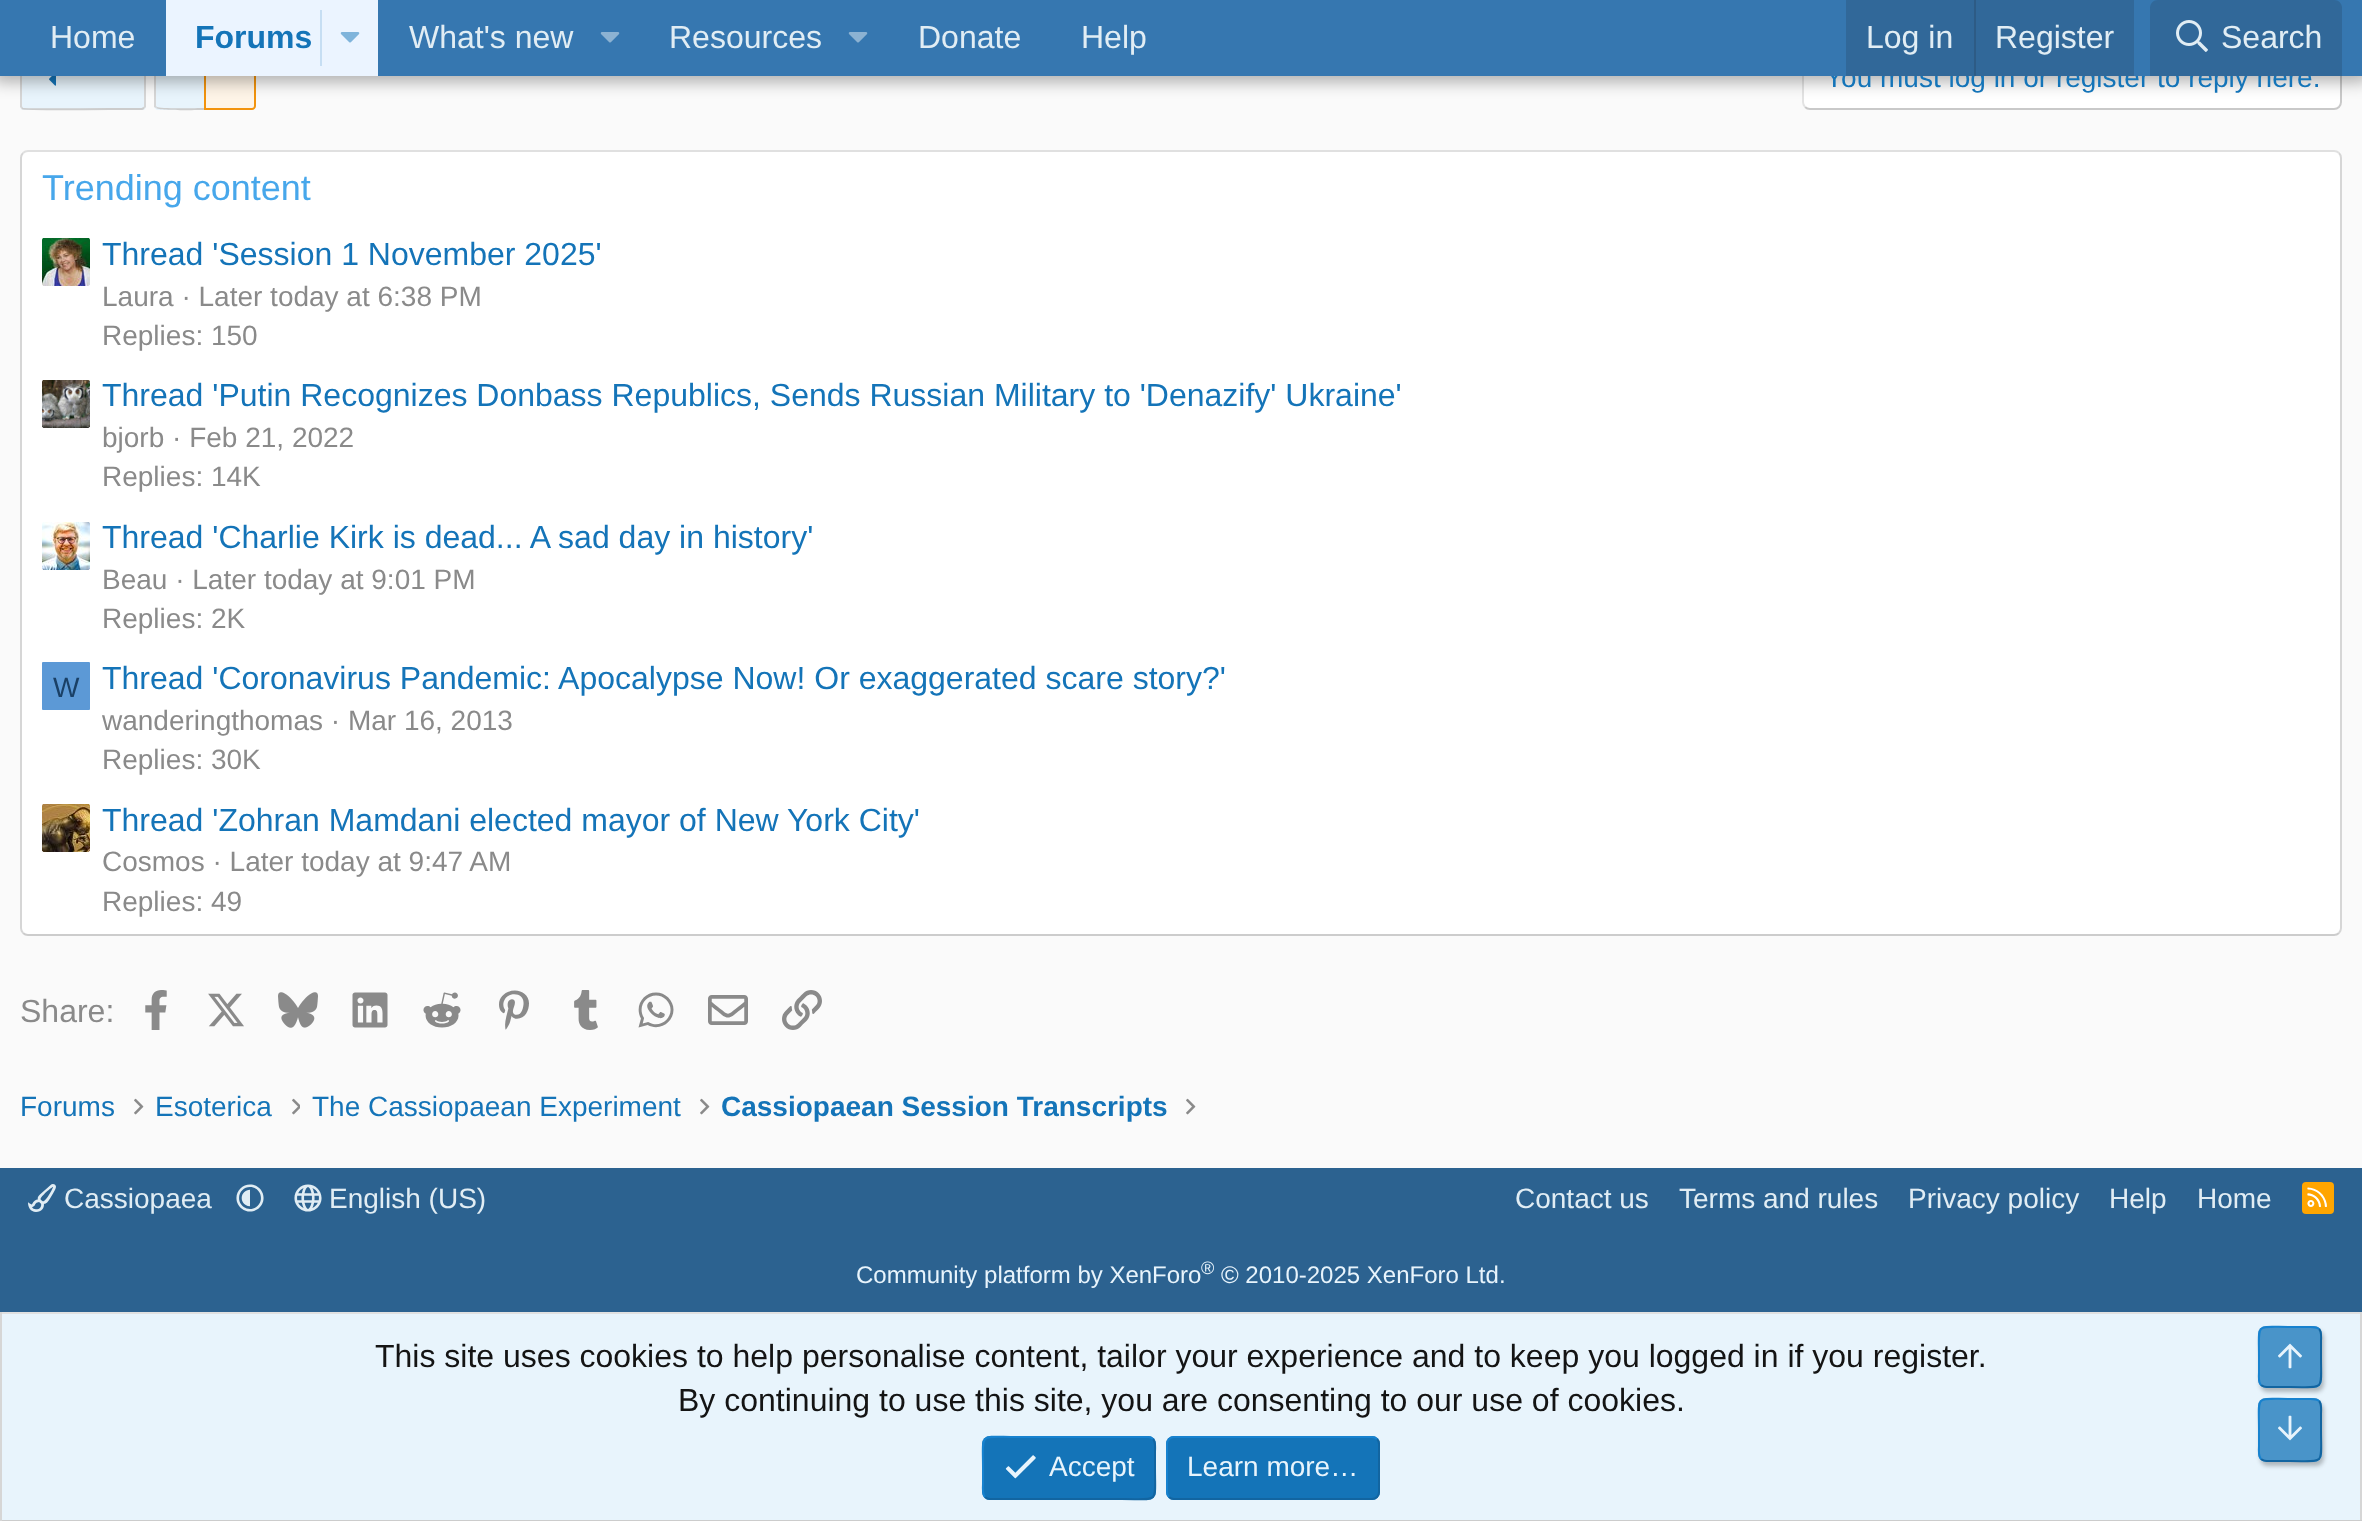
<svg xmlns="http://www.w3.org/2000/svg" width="2362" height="1521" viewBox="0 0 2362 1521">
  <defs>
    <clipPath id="clip1"><path d="M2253 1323H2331V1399H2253ZM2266 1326H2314C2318.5 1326 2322 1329.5 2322 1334V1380C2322 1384.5 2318.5 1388 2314 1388H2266C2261.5 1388 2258 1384.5 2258 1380V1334C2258 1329.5 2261.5 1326 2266 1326Z" clip-rule="evenodd"/></clipPath>
    <clipPath id="clip2"><path d="M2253 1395H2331V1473H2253ZM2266 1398H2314C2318.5 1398 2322 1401.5 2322 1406V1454C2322 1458.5 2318.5 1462 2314 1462H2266C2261.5 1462 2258 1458.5 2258 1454V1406C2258 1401.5 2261.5 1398 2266 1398Z" clip-rule="evenodd"/></clipPath>
  </defs>
  <rect width="100%" height="100%" fill="rgb(250,250,250)"/>
  <rect x="20" y="48" width="126" height="62" rx="4" fill="rgb(232,244,252)"/>
  <path d="M144 50L145 51.5V106.5L144 108" fill="none" stroke="rgb(214,214,214)" stroke-width="2"/>
  <path d="M144 108L142 109H122.5C112 109 24.5 110 22.5 108.5L22 108" fill="none" stroke="rgb(204,204,204)" stroke-width="2"/>
  <path d="M22 108L21 106.5V51.5L22 50" fill="none" stroke="rgb(214,214,214)" stroke-width="2"/>
  <image x="49" y="76" width="7" height="10" href="pic4.png"/>
  <path d="M158 48H204V110H158C156 110 154 108 154 106V52C154 50 156 48 158 48Z" fill="rgb(232,244,252)"/>
  <path d="M204 110C198 110 158 111 156 108L157 107C158 109 199 108 204 108Z" fill="rgb(204,204,204)"/>
  <path d="M154 51V107L156 108L157 107L156 106V52L157 51L155 49Z" fill="rgb(214,214,214)"/>
  <path d="M205 49H252C253.5 49 255 50.5 255 52V106C255 107.5 253.5 109 252 109H205Z" fill="rgb(254,244,231)" stroke="rgb(242,147,13)" stroke-width="2"/>
  <rect x="1802" y="48" width="540" height="62" rx="8" fill="rgb(255,255,255)"/>
  <path d="M2339 51C2340.5 52.5 2341 54 2341 56V102C2341 104 2340.5 105.5 2339 107C2337.5 108.5 2336 109 2334 109H1810C1808 109 1806.5 108.5 1805 107" fill="none" stroke="rgb(201,201,201)" stroke-width="2"/>
  <path d="M1805 107C1803.5 105.5 1803 104 1803 102V56C1803 54 1803.5 52.5 1805 51C1806.5 49.5 1808 49 1810 49H2334C2336 49 2337.5 49.5 2339 51" fill="none" stroke="rgb(227,227,227)" stroke-width="2"/>
  <rect x="-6" y="-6" width="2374" height="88" fill="rgba(0,0,0,0.3)" filter="blur(8px)"/>
  <text x="1825" y="87" font-family="Liberation Sans" font-size="28" fill="rgb(20,116,184)">You must log in or register to reply here.</text>
  <rect x="0" y="0" width="2362" height="76" fill="rgb(54,119,176)"/>
  <text x="50" y="48" font-family="Liberation Sans" font-size="32" fill="rgb(225,237,244)">Home</text>
  <rect x="166" y="0" width="212" height="76" fill="rgb(235,244,255)"/>
  <text x="195" y="48" font-family="Liberation Sans" font-size="32" font-weight="bold" fill="rgb(20,116,184)">Forums</text>
  <rect x="320" y="10" width="2" height="56" fill="rgb(198,222,243)"/>
  <image x="340" y="32" width="20" height="11" href="pic1.png"/>
  <text x="409" y="48" font-family="Liberation Sans" font-size="32" fill="rgb(225,237,244)">What's new</text>
  <image x="600" y="32" width="20" height="11" href="pic2.png"/>
  <text x="669" y="48" font-family="Liberation Sans" font-size="32" fill="rgb(225,237,244)">Resources</text>
  <image x="848" y="32" width="20" height="11" href="pic2.png"/>
  <g font-family="Liberation Sans" font-size="32" fill="rgb(225,237,244)">
    <text x="918" y="48">Donate</text>
    <text x="1081" y="48">Help</text>
  </g>
  <rect x="1846" y="0" width="288" height="76" fill="rgb(49,104,153)"/>
  <text x="1866" y="48" font-family="Liberation Sans" font-size="32" fill="rgb(225,237,244)">Log in</text>
  <rect x="1974" y="0" width="2" height="76" fill="rgb(45,91,133)"/>
  <text x="1995" y="48" font-family="Liberation Sans" font-size="32" fill="rgb(225,237,244)">Register</text>
  <path d="M2158 0H2334C2338.5 0 2342 3.5 2342 8V76H2150V8C2150 3.5 2153.5 0 2158 0Z" fill="rgb(49,104,153)"/>
  <image x="2176" y="20" width="32" height="32" href="pic3.png"/>
  <text x="2221" y="48" font-family="Liberation Sans" font-size="32" fill="rgb(225,237,244)">Search</text>
  <rect x="20" y="150" width="2322" height="786" rx="8" fill="rgb(255,255,255)"/>
  <path d="M23 153C24.5 151.5 26 151 28 151H2334C2336 151 2337.5 151.5 2339 153" fill="none" stroke="rgb(224,224,224)" stroke-width="2"/>
  <path d="M2339 153C2340.5 154.5 2341 156 2341 158V928C2341 930 2340.5 931.5 2339 933" fill="none" stroke="rgb(214,214,214)" stroke-width="2"/>
  <path d="M2339 933C2337.5 934.5 2336 935 2334 935H28C26 935 24.5 934.5 23 933" fill="none" stroke="rgb(204,204,204)" stroke-width="2"/>
  <path d="M23 933C21.5 931.5 21 930 21 928V158C21 156 21.5 154.5 23 153" fill="none" stroke="rgb(214,214,214)" stroke-width="2"/>
  <text x="42" y="200" font-family="Liberation Sans" font-size="36" fill="rgb(71,167,235)">Trending content</text>
  <image x="42" y="238" width="48" height="48" href="pic5.png"/>
  <text x="102" y="265" font-family="Liberation Sans" font-size="32" fill="rgb(20,116,184)">Thread 'Session 1 November 2025'</text>
  <g font-family="Liberation Sans" font-size="28" fill="rgb(138,138,138)">
    <text>
      <tspan x="102" y="306">Laura · Later today at 6:38 PM</tspan>
      <tspan x="102" y="345">Replies: 150</tspan>
    </text>
  </g>
  <image x="42" y="380" width="48" height="48" href="pic6.png"/>
  <text x="102" y="406" font-family="Liberation Sans" font-size="32" fill="rgb(20,116,184)">Thread 'Putin Recognizes Donbass Republics, Sends Russian Military to 'Denazify' Ukraine'</text>
  <g font-family="Liberation Sans" font-size="28" fill="rgb(138,138,138)">
    <text>
      <tspan x="102" y="447">bjorb · Feb 21, 2022</tspan>
      <tspan x="102" y="486">Replies: 14K</tspan>
    </text>
  </g>
  <image x="42" y="522" width="48" height="48" href="pic7.png"/>
  <text x="102" y="548" font-family="Liberation Sans" font-size="32" fill="rgb(20,116,184)">Thread 'Charlie Kirk is dead... A sad day in history'</text>
  <g font-family="Liberation Sans" font-size="28" fill="rgb(138,138,138)">
    <text>
      <tspan x="102" y="589">Beau · Later today at 9:01 PM</tspan>
      <tspan x="102" y="628">Replies: 2K</tspan>
    </text>
  </g>
  <rect x="42" y="662" width="48" height="48" rx="1" fill="rgb(92,153,214)"/>
  <text x="53" y="697" font-family="Liberation Sans" font-size="28" fill="rgb(26,64,102)">W</text>
  <text x="102" y="689" font-family="Liberation Sans" font-size="32" fill="rgb(20,116,184)">Thread 'Coronavirus Pandemic: Apocalypse Now! Or exaggerated scare story?'</text>
  <g font-family="Liberation Sans" font-size="28" fill="rgb(138,138,138)">
    <text>
      <tspan x="102" y="730">wanderingthomas · Mar 16, 2013</tspan>
      <tspan x="102" y="769">Replies: 30K</tspan>
    </text>
  </g>
  <image x="42" y="804" width="48" height="48" href="pic8.png"/>
  <text x="102" y="831" font-family="Liberation Sans" font-size="32" fill="rgb(20,116,184)">Thread 'Zohran Mamdani elected mayor of New York City'</text>
  <g font-family="Liberation Sans" font-size="28" fill="rgb(138,138,138)">
    <text>
      <tspan x="102" y="871">Cosmos · Later today at 9:47 AM</tspan>
      <tspan x="102" y="911">Replies: 49</tspan>
    </text>
  </g>
  <text x="20" y="1022" font-family="Liberation Sans" font-size="32" fill="rgb(138,138,138)">Share:</text>
  <image x="145" y="990" width="22" height="40" href="pic9.png"/>
  <image x="208" y="993" width="36" height="34" href="pic10.png"/>
  <image x="278" y="992" width="40" height="36" href="pic11.png"/>
  <image x="352" y="992" width="36" height="36" href="pic12.png"/>
  <image x="423" y="992" width="38" height="36" href="pic13.png"/>
  <image x="499" y="990" width="30" height="40" href="pic14.png"/>
  <image x="574" y="990" width="24" height="40" href="pic15.png"/>
  <image x="638" y="992" width="36" height="36" href="pic16.png"/>
  <image x="708" y="995" width="40" height="30" href="pic17.png"/>
  <image x="782" y="990" width="40" height="40" href="pic18.png"/>
  <text x="20" y="1116" font-family="Liberation Sans" font-size="28" fill="rgb(20,116,184)">Forums</text>
  <image x="134" y="1098" width="10" height="17" href="pic19.png"/>
  <text x="155" y="1116" font-family="Liberation Sans" font-size="28" fill="rgb(20,116,184)">Esoterica</text>
  <image x="292" y="1098" width="8" height="17" href="pic20.png"/>
  <text x="312" y="1116" font-family="Liberation Sans" font-size="28" fill="rgb(20,116,184)">The Cassiopaean Experiment</text>
  <image x="700" y="1098" width="10" height="17" href="pic19.png"/>
  <text x="721" y="1116" font-family="Liberation Sans" font-size="28" font-weight="bold" fill="rgb(20,116,184)">Cassiopaean Session Transcripts</text>
  <image x="1186" y="1098" width="10" height="17" href="pic19.png"/>
  <rect x="0" y="1168" width="2362" height="144" fill="rgb(44,98,144)"/>
  <image x="28" y="1184" width="28" height="28" href="pic21.png"/>
  <text x="64" y="1208" font-family="Liberation Sans" font-size="28" fill="rgb(225,237,244)">Cassiopaea</text>
  <image x="236" y="1184" width="28" height="28" href="pic22.png"/>
  <image x="294" y="1184" width="28" height="28" href="pic23.png"/>
  <g font-family="Liberation Sans" font-size="28" fill="rgb(225,237,244)">
    <text x="329" y="1208">English (US)</text>
    <text x="1515" y="1208">Contact us</text>
    <text x="1679" y="1208">Terms and rules</text>
    <text x="1908" y="1208">Privacy policy</text>
    <text x="2109" y="1208">Help</text>
    <text x="2197" y="1208">Home</text>
  </g>
  <rect x="2302" y="1182" width="32" height="32" rx="4" fill="rgb(255,165,0)"/>
  <image x="2307" y="1187" width="20" height="20" href="pic24.png"/>
  <text x="856" y="1283" font-family="Liberation Sans" font-size="24" fill="rgb(232,244,252)">Community platform by XenForo</text>
  <text x="1201" y="1274" font-family="Liberation Sans" font-size="18" fill="rgb(232,244,252)">®</text>
  <text x="1221" y="1283" font-family="Liberation Sans" font-size="24" fill="rgb(232,244,252)">© 2010-2025 XenForo Ltd.</text>
  <rect x="2" y="1314" width="2358" height="206" fill="rgb(232,244,252)"/>
  <rect x="0" y="1312" width="2362" height="2" fill="rgb(224,224,224)"/>
  <rect x="2360" y="1312" width="2" height="209" fill="rgb(214,214,214)"/>
  <rect x="0" y="1520" width="2362" height="1" fill="rgb(204,204,204)"/>
  <rect x="0" y="1312" width="2" height="209" fill="rgb(214,214,214)"/>
  <g font-family="Liberation Sans" font-size="32" fill="rgb(20,20,20)">
    <text x="375" y="1367">This site uses cookies to help personalise content, tailor your experience and to keep you logged in if you register.</text>
    <text x="678" y="1411">By continuing to use this site, you are consenting to our use of cookies.</text>
  </g>
  <rect x="982" y="1436" width="174" height="64" rx="8" fill="rgb(20,116,184)"/>
  <path d="M1153 1439C1156 1442.5 1155 1448 1155 1452V1468C1155 1504.5 1160 1499 1121.5 1499H990C988 1499 986.5 1498.5 985 1497" fill="none" stroke="rgb(18,101,161)" stroke-width="2"/>
  <path d="M985 1497C982 1493.5 983 1488 983 1484V1468C983 1431.5 978 1437 1016.5 1437H1148C1150 1437 1151.5 1437.5 1153 1439" fill="none" stroke="rgb(23,130,207)" stroke-width="2"/>
  <image x="1005" y="1455" width="31" height="24" href="pic25.png"/>
  <text x="1049" y="1476" font-family="Liberation Sans" font-size="28" fill="rgb(232,244,252)">Accept</text>
  <rect x="1166" y="1436" width="214" height="64" rx="8" fill="rgb(20,116,184)"/>
  <path d="M1377 1439C1378.5 1440.5 1379 1442 1379 1444V1492C1379 1494 1378.5 1495.5 1377 1497C1375.5 1498.5 1374 1499 1372 1499H1174C1172 1499 1170.5 1498.5 1169 1497" fill="none" stroke="rgb(18,101,161)" stroke-width="2"/>
  <path d="M1169 1497C1167.5 1495.5 1167 1494 1167 1492V1444C1167 1442 1167.5 1440.5 1169 1439C1170.5 1437.5 1172 1437 1174 1437H1372C1374 1437 1375.5 1437.5 1377 1439" fill="none" stroke="rgb(23,130,207)" stroke-width="2"/>
  <text x="1187" y="1476" font-family="Liberation Sans" font-size="28" fill="rgb(232,244,252)">Learn more…</text>
  <g clip-path="url(#clip1)">
    <rect x="2260" y="1330" width="64" height="62" rx="8" fill="rgba(0,0,0,0.25)" filter="blur(2px)"/>
  </g>
  <rect x="2258" y="1326" width="64" height="62" rx="8" fill="rgba(20,116,184,0.75)"/>
  <path d="M2319 1329C2322 1332 2321 1338 2321 1341.5V1357C2321 1392 2325.5 1387 2290 1387H2274C2270 1387 2264.5 1388 2261 1385" fill="none" stroke="rgb(18,101,161)" stroke-width="2"/>
  <path d="M2261 1385C2258 1382 2259 1376 2259 1372.5V1357C2259 1322 2254.5 1327 2290 1327H2306C2310 1327 2315.5 1326 2319 1329" fill="none" stroke="rgb(23,130,207)" stroke-width="2"/>
  <image x="2278" y="1343" width="24" height="26" href="pic26.png"/>
  <g clip-path="url(#clip2)">
    <rect x="2260" y="1402" width="64" height="64" rx="8" fill="rgba(0,0,0,0.25)" filter="blur(2px)"/>
  </g>
  <rect x="2258" y="1398" width="64" height="64" rx="8" fill="rgba(20,116,184,0.75)"/>
  <path d="M2319 1401C2322 1404.5 2321 1410 2321 1414V1430C2321 1466 2326 1461 2290 1461H2274C2270 1461 2264.5 1462 2261 1459" fill="none" stroke="rgb(18,101,161)" stroke-width="2"/>
  <path d="M2261 1459C2258 1455.5 2259 1450 2259 1446V1430C2259 1394 2254 1399 2290 1399H2306C2310 1399 2315.5 1398 2319 1401" fill="none" stroke="rgb(23,130,207)" stroke-width="2"/>
  <image x="2278" y="1415" width="24" height="26" href="pic27.png"/>
</svg>
